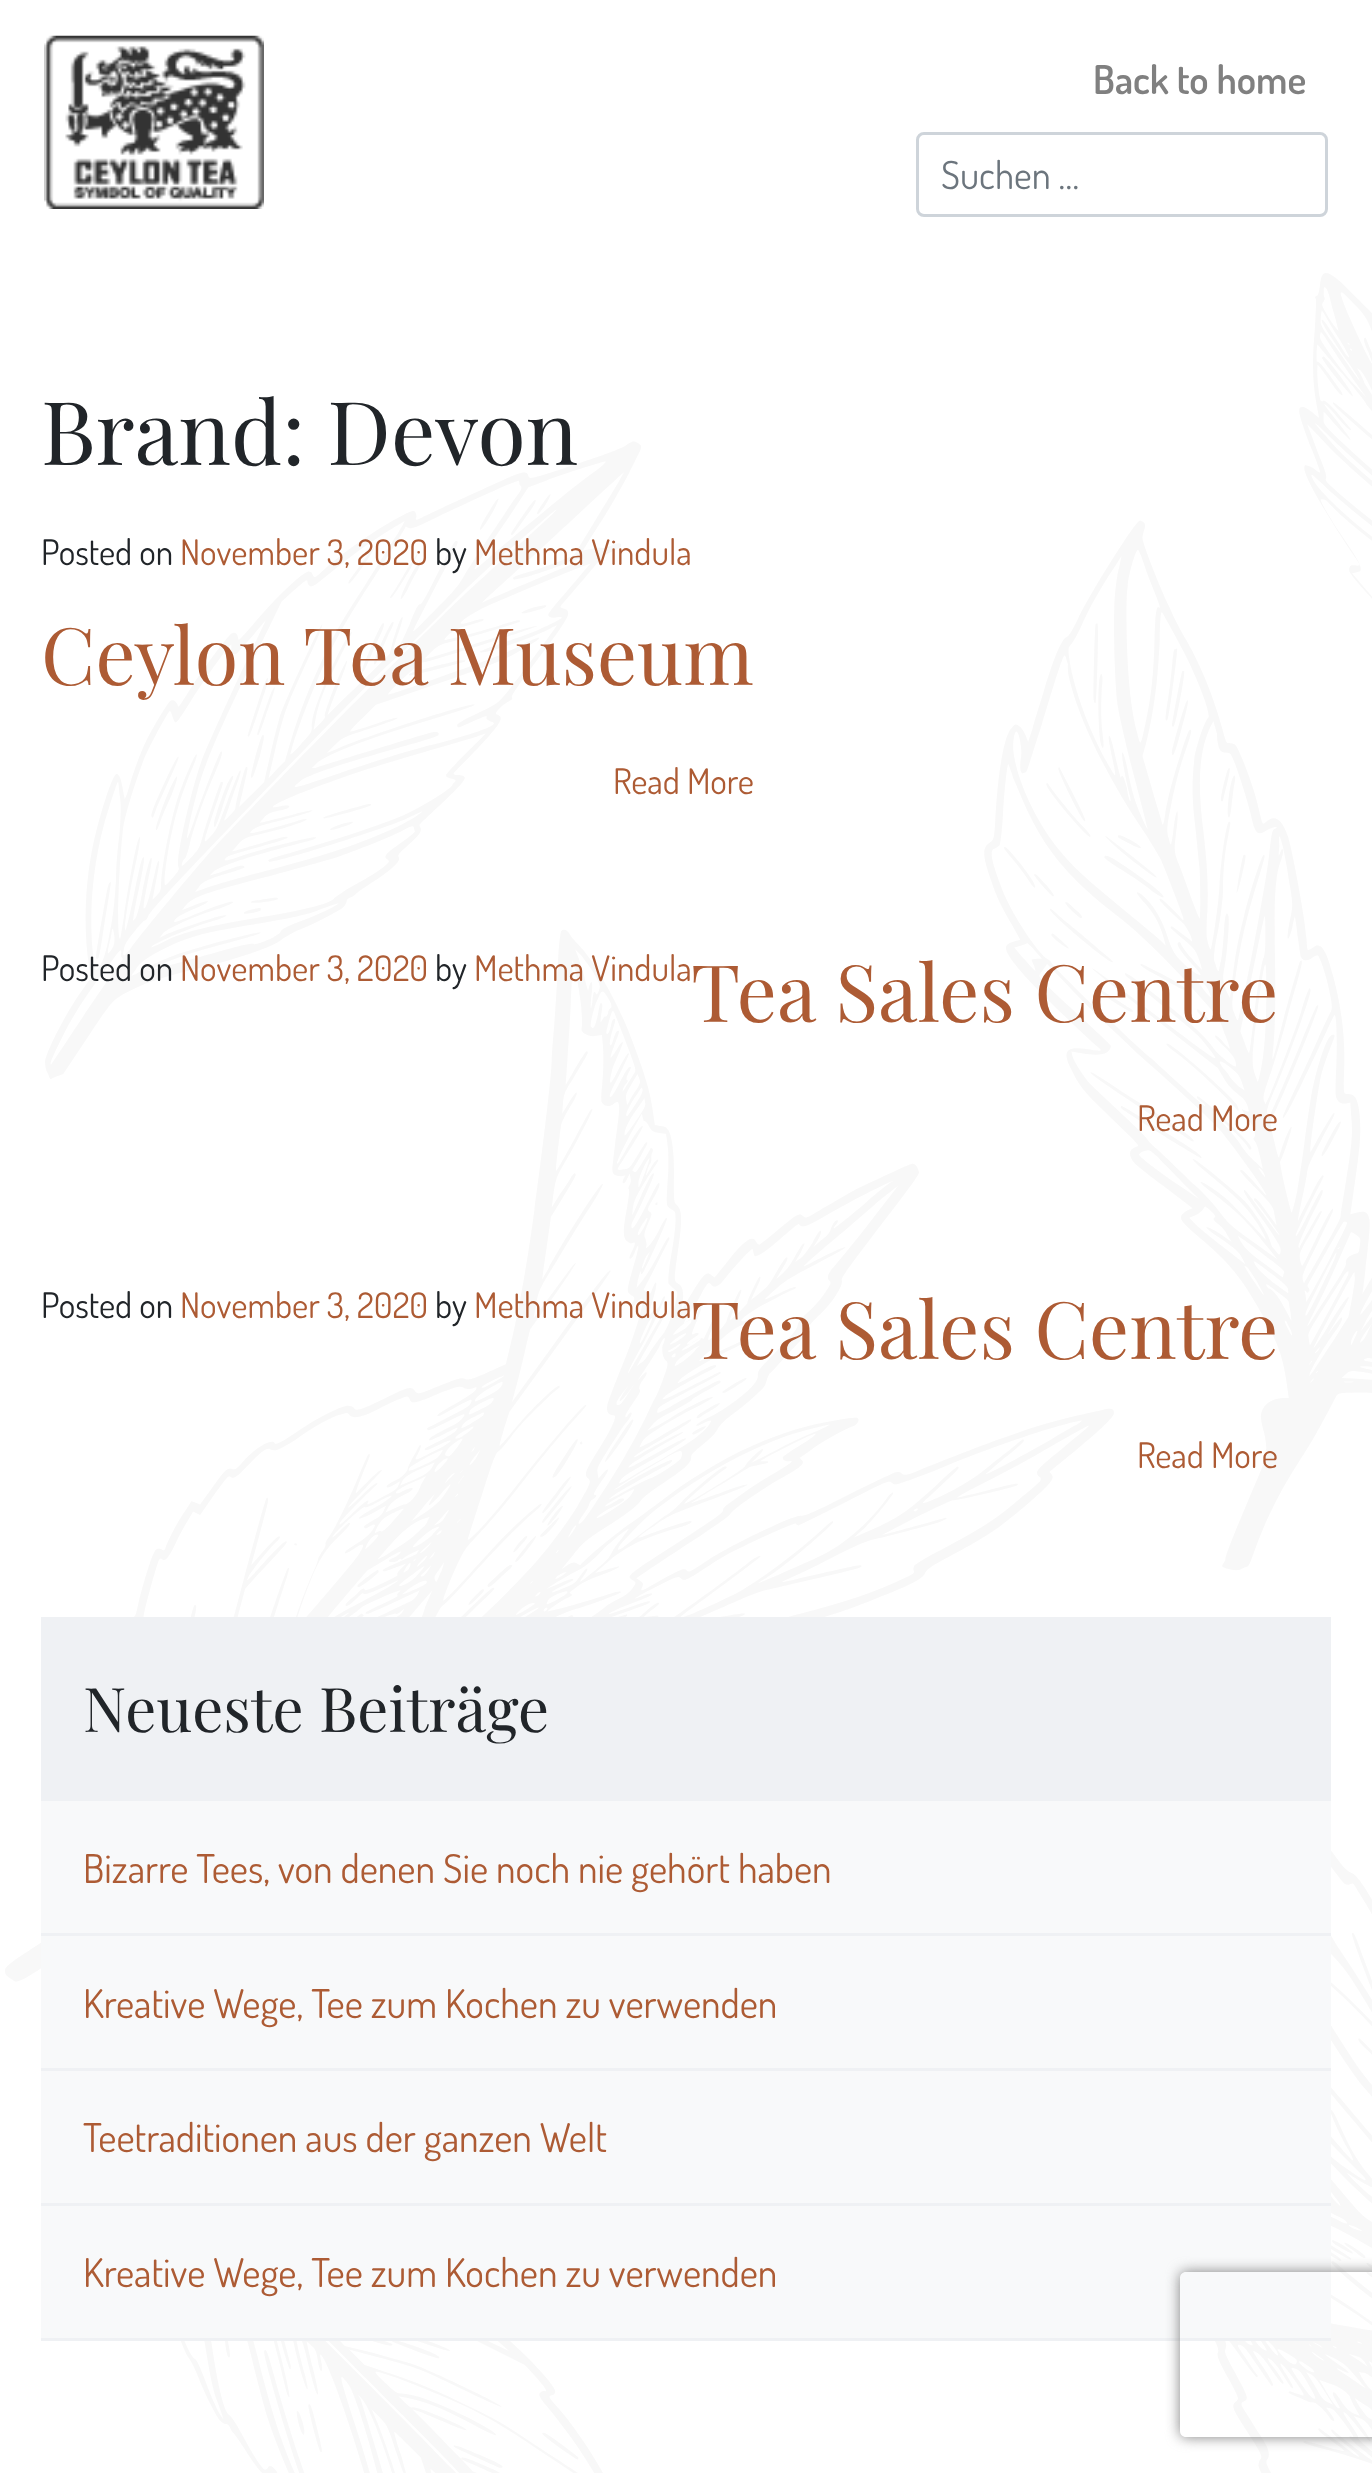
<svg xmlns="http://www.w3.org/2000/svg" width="1372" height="2473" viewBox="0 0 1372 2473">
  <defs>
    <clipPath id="clip1"><path d="M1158 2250H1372V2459H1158ZM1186 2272H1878C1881.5 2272 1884 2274.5 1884 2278V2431C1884 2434.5 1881.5 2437 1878 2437H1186C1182.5 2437 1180 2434.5 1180 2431V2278C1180 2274.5 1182.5 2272 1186 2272Z" clip-rule="evenodd"/></clipPath>
  </defs>
  <rect width="100%" height="100%" fill="rgb(255,255,255)"/>
  <image x="44" y="35" width="220" height="174" href="pic1.png"/>
  <text x="1093" y="94" font-family="Dosis" font-size="39.6" font-weight="600" fill="rgb(128,128,128)">Back to home</text>
  <rect x="917.5" y="133.5" width="409" height="82" rx="6.5" fill="none" stroke="rgb(206,212,218)" stroke-width="3"/>
  <text x="941" y="189" font-family="Dosis" font-size="38.5" fill="rgb(108,117,125)">Suchen …</text>
  <image x="5" y="273" width="1367" height="2200" href="pic2.png"/>
  <text x="41" y="465" font-family="Playfair Display" font-size="88" fill="rgb(33,37,41)">Brand: Devon</text>
  <text x="41" y="565" font-family="Dosis" font-size="35.25" fill="rgb(33,37,41)">Posted on</text>
  <text x="180" y="565" font-family="Dosis" font-size="35.25" fill="rgb(173,91,52)">November 3, 2020</text>
  <text x="435" y="565" font-family="Dosis" font-size="35.25" fill="rgb(33,37,41)">by</text>
  <text x="474" y="565" font-family="Dosis" font-size="35.25" fill="rgb(173,91,52)">Methma Vindula</text>
  <text x="41" y="685" font-family="Playfair Display" font-size="79.25" fill="rgb(173,91,52)">Ceylon Tea Museum</text>
  <text x="613" y="794" font-family="Dosis" font-size="35.25" fill="rgb(173,91,52)">Read More</text>
  <text x="41" y="981" font-family="Dosis" font-size="35.25" fill="rgb(33,37,41)">Posted on</text>
  <text x="180" y="981" font-family="Dosis" font-size="35.25" fill="rgb(173,91,52)">November 3, 2020</text>
  <text x="435" y="981" font-family="Dosis" font-size="35.25" fill="rgb(33,37,41)">by</text>
  <text x="474" y="981" font-family="Dosis" font-size="35.25" fill="rgb(173,91,52)">Methma Vindula</text>
  <text x="691" y="1022" font-family="Playfair Display" font-size="79.25" fill="rgb(173,91,52)">Tea Sales Centre</text>
  <text x="1137" y="1131" font-family="Dosis" font-size="35.25" fill="rgb(173,91,52)">Read More</text>
  <text x="41" y="1318" font-family="Dosis" font-size="35.25" fill="rgb(33,37,41)">Posted on</text>
  <text x="180" y="1318" font-family="Dosis" font-size="35.25" fill="rgb(173,91,52)">November 3, 2020</text>
  <text x="435" y="1318" font-family="Dosis" font-size="35.25" fill="rgb(33,37,41)">by</text>
  <text x="474" y="1318" font-family="Dosis" font-size="35.25" fill="rgb(173,91,52)">Methma Vindula</text>
  <text x="691" y="1359" font-family="Playfair Display" font-size="79.25" fill="rgb(173,91,52)">Tea Sales Centre</text>
  <text x="1137" y="1468" font-family="Dosis" font-size="35.25" fill="rgb(173,91,52)">Read More</text>
  <rect x="41" y="1801" width="1290" height="537" fill="rgb(248,249,250)"/>
  <rect x="41" y="1617" width="1290" height="184" fill="rgb(239,241,244)"/>
  <text x="83" y="1732" font-family="Playfair Display" font-size="61.5" fill="rgb(33,37,41)">Neueste Beiträge</text>
  <rect x="41" y="1933" width="1290" height="3" fill="rgb(239,241,244)"/>
  <text x="83" y="1883" font-family="Dosis" font-size="39.6" fill="rgb(173,91,52)">Bizarre Tees, von denen Sie noch nie gehört haben</text>
  <rect x="41" y="2068" width="1290" height="3" fill="rgb(239,241,244)"/>
  <text x="83" y="2018" font-family="Dosis" font-size="39.6" fill="rgb(173,91,52)">Kreative Wege, Tee zum Kochen zu verwenden</text>
  <rect x="41" y="2203" width="1290" height="3" fill="rgb(239,241,244)"/>
  <text x="83" y="2152" font-family="Dosis" font-size="39.6" fill="rgb(173,91,52)">Teetraditionen aus der ganzen Welt</text>
  <rect x="41" y="2338" width="1290" height="3" fill="rgb(239,241,244)"/>
  <text x="83" y="2287" font-family="Dosis" font-size="39.6" fill="rgb(173,91,52)">Kreative Wege, Tee zum Kochen zu verwenden</text>
  <g clip-path="url(#clip1)">
    <rect x="1180" y="2272" width="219" height="165" rx="6" fill="rgb(128,128,128)" filter="blur(7px)"/>
  </g>
</svg>
